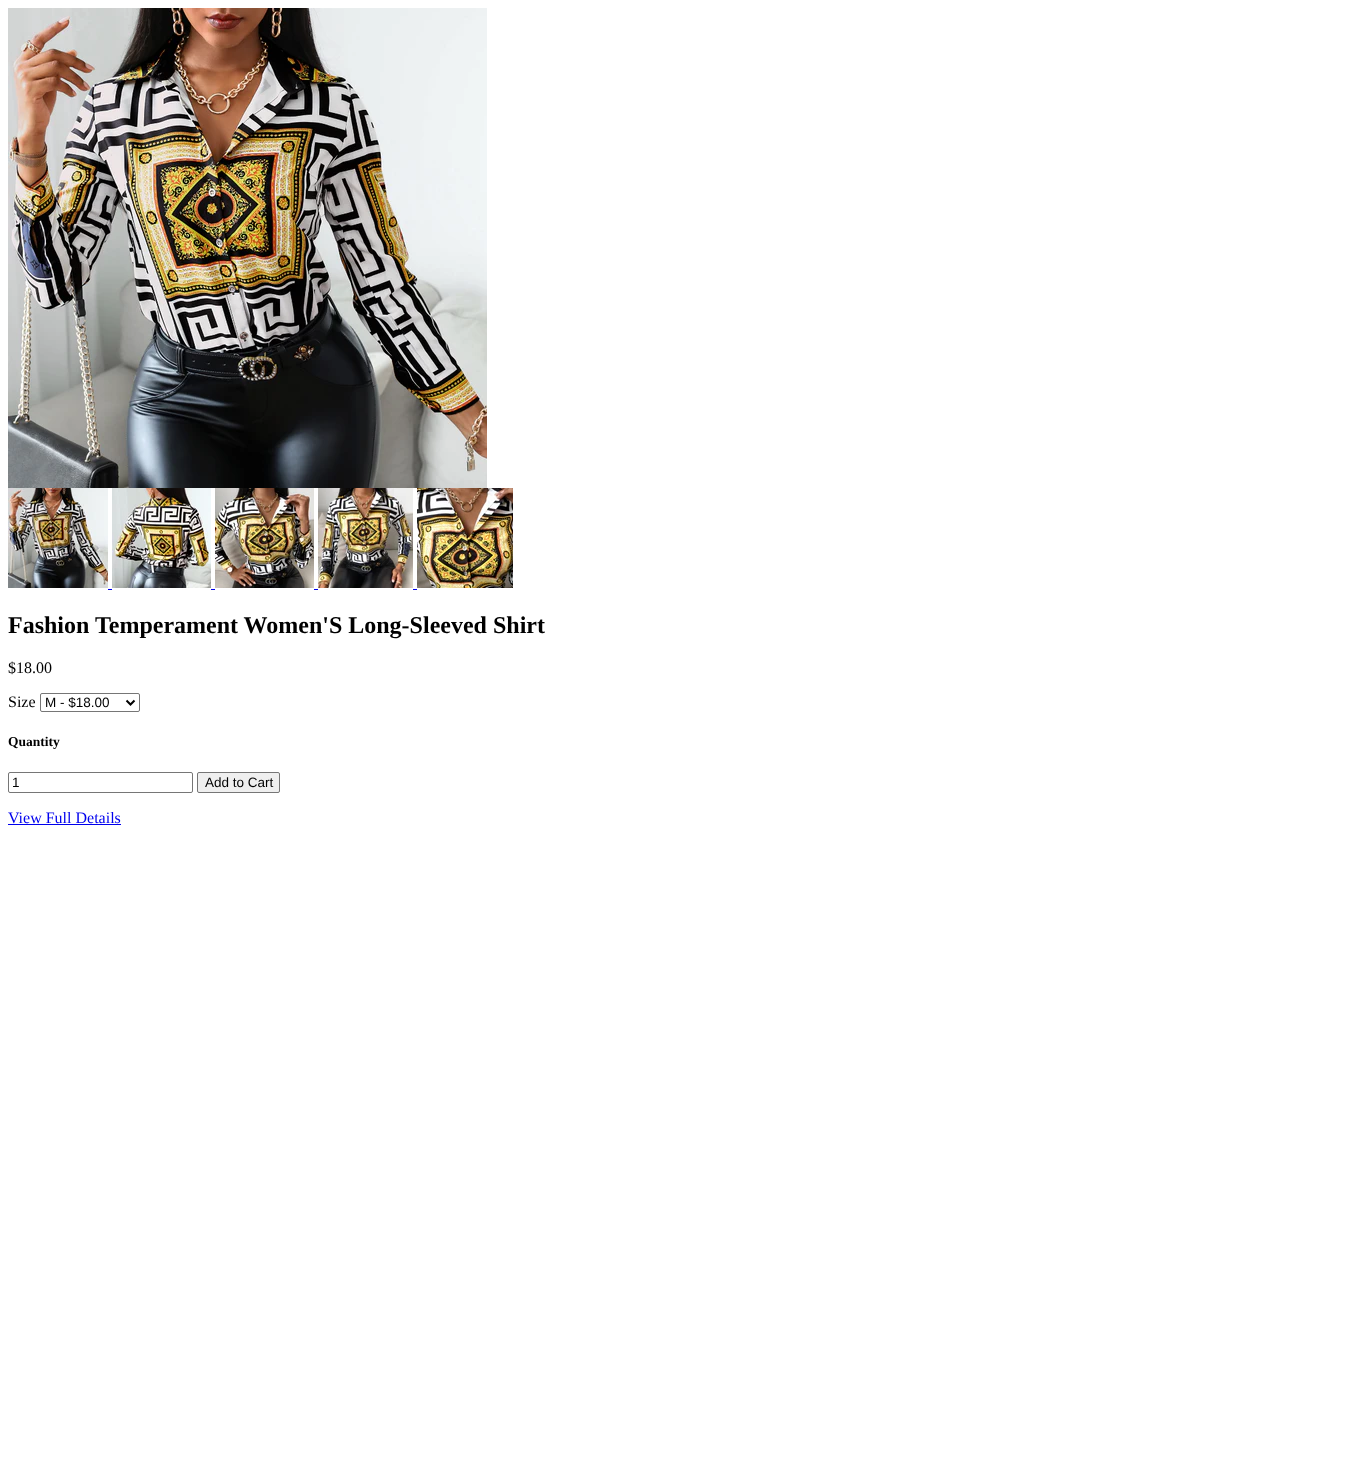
<svg xmlns="http://www.w3.org/2000/svg" width="1355" height="1475" viewBox="0 0 1355 1475">
  <rect width="100%" height="100%" fill="rgb(255,255,255)"/>
  <image x="8" y="8" width="479" height="480" href="pic1.png"/>
  <image x="8" y="488" width="100" height="100" href="pic2.png"/>
  <image x="112" y="488" width="99" height="100" href="pic3.png"/>
  <image x="215" y="488" width="99" height="100" href="pic4.png"/>
  <image x="318" y="488" width="95" height="100" href="pic5.png"/>
  <image x="417" y="488" width="96" height="100" href="pic6.png"/>
  <rect x="108" y="589" width="4" height="1" fill="rgb(0,0,238)"/>
  <rect x="211" y="589" width="4" height="1" fill="rgb(0,0,238)"/>
  <rect x="314" y="589" width="4" height="1" fill="rgb(0,0,238)"/>
  <rect x="413" y="589" width="4" height="1" fill="rgb(0,0,238)"/>
  <text x="8" y="633" font-family="Liberation Serif" font-size="24" font-weight="bold" fill="rgb(0,0,0)">Fashion Temperament Women'S Long-Sleeved Shirt</text>
  <g font-family="Liberation Serif" font-size="16" fill="rgb(0,0,0)">
    <text x="8" y="673">$18.00</text>
    <text x="8" y="707">Size</text>
  </g>
  <rect x="40.5" y="693.5" width="99" height="18" rx="1.5" fill="none" stroke="rgb(118,118,118)"/>
  <path d="M126.5 700.5L130.5 704.5L134.5 700.5" fill="none" stroke="rgb(0,0,0)" stroke-width="2"/>
  <text x="45" y="707" font-family="Liberation Sans" font-size="13.5" fill="rgb(0,0,0)">M - $18.00</text>
  <text x="8" y="746" font-family="Liberation Serif" font-size="13.5" font-weight="bold" fill="rgb(0,0,0)">Quantity</text>
  <rect x="8.5" y="772.5" width="184" height="20" rx="1.5" fill="none" stroke="rgb(118,118,118)"/>
  <text x="12" y="787" font-family="Liberation Sans" font-size="13.5" fill="rgb(0,0,0)">1</text>
  <rect x="197.5" y="772.5" width="82" height="20" rx="1.5" fill="rgb(239,239,239)" stroke="rgb(118,118,118)"/>
  <text x="205" y="787" font-family="Liberation Sans" font-size="13.5" fill="rgb(0,0,0)">Add to Cart</text>
  <text x="8" y="823" font-family="Liberation Serif" font-size="16" fill="rgb(0,0,238)">View Full Details</text>
  <rect x="8" y="824" width="113" height="1" fill="rgb(0,0,238)"/>
</svg>
